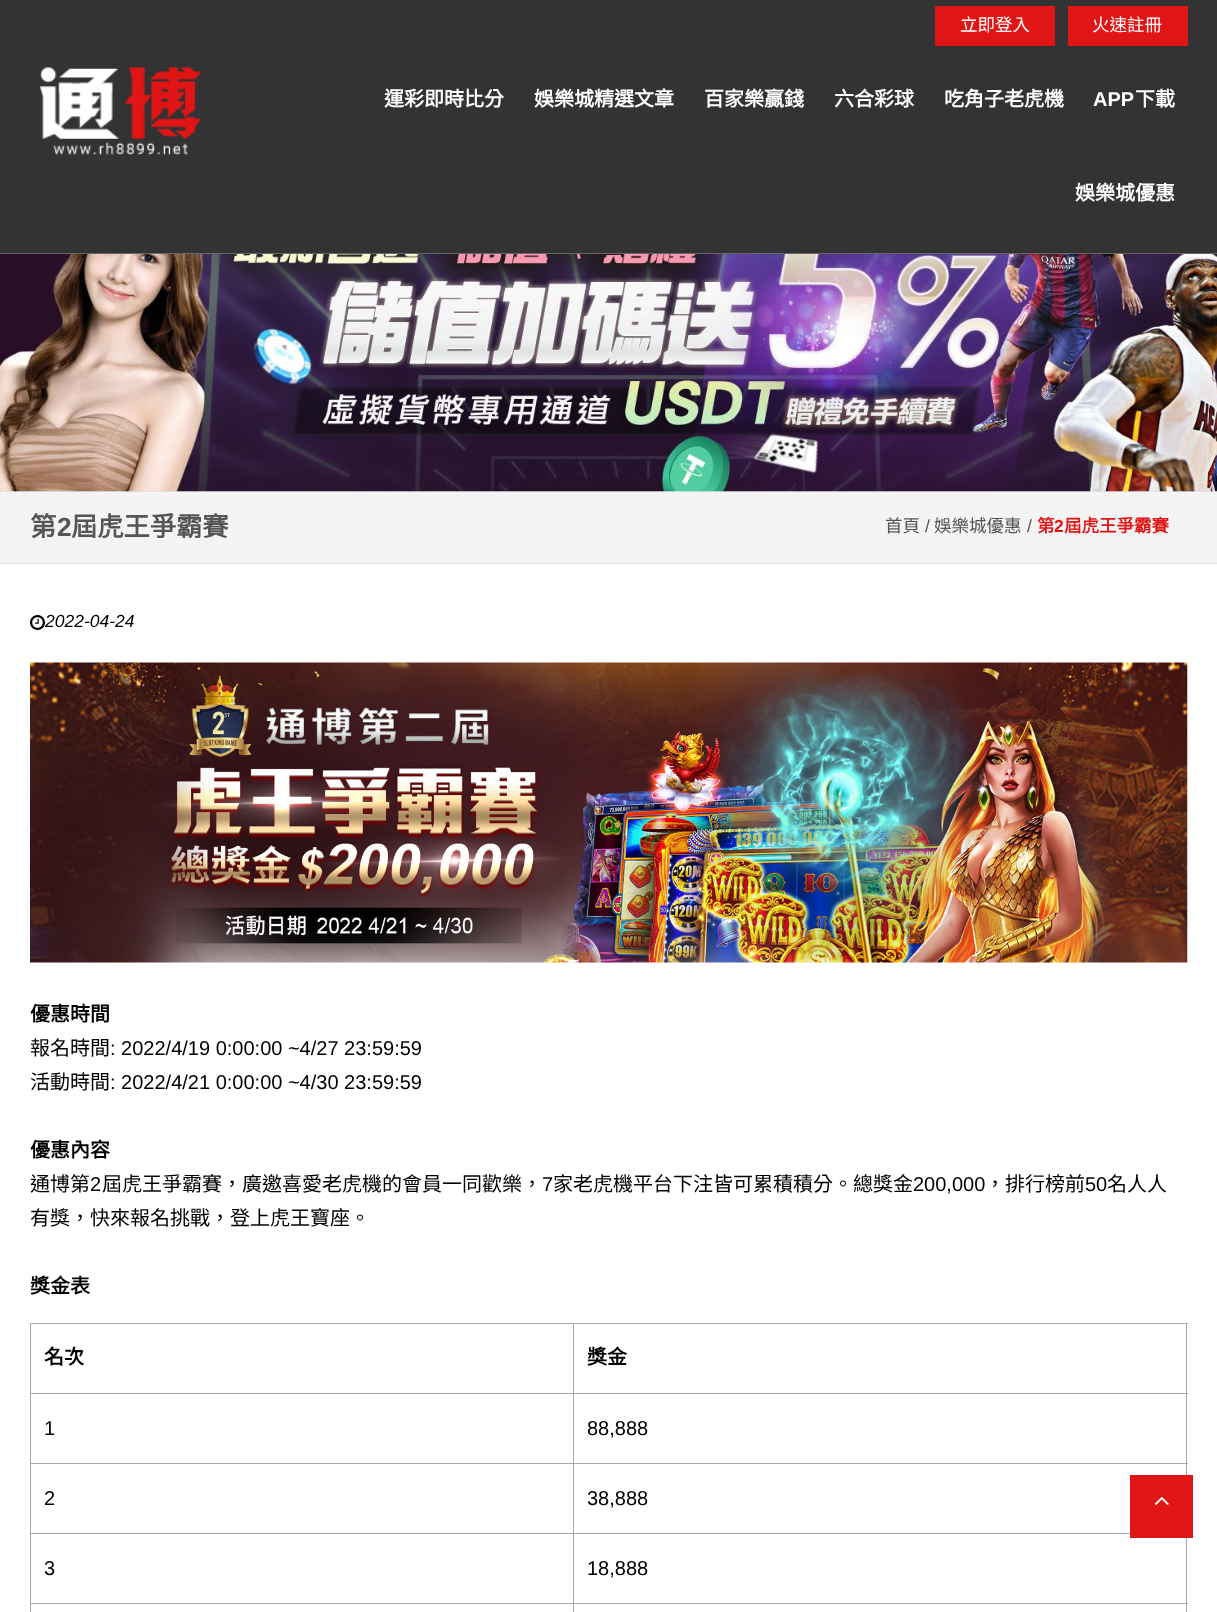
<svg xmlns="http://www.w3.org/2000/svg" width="1217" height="1612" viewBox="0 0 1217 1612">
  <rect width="100%" height="100%" fill="rgb(255,255,255)"/>
  <rect x="0" y="0" width="1217" height="253" fill="rgb(51,51,51)"/>
  <rect x="0" y="253" width="1217" height="1" fill="rgb(102,102,102)"/>
  <rect x="935" y="6" width="120" height="40" fill="rgb(225,21,21)"/>
  <text x="960" y="31" font-family="Noto Sans CJK TC" font-size="17.5" fill="rgb(255,255,255)">立即登入</text>
  <rect x="1068" y="6" width="120" height="40" fill="rgb(225,21,21)"/>
  <text x="1092" y="31" font-family="Noto Sans CJK TC" font-size="17.5" fill="rgb(255,255,255)">火速註冊</text>
  <image x="39" y="67" width="163" height="89" href="pic1.png"/>
  <g font-family="Noto Sans CJK TC" font-size="20" font-weight="bold" fill="rgb(255,255,255)">
    <text x="384" y="106">運彩即時比分</text>
    <text x="534" y="106">娛樂城精選文章</text>
    <text x="704" y="106">百家樂贏錢</text>
    <text x="834" y="106">六合彩球</text>
    <text x="944" y="106">吃角子老虎機</text>
  </g>
  <text x="1093" y="106" font-family="Liberation Sans" font-size="20" font-weight="bold" fill="rgb(255,255,255)">APP</text>
  <g font-family="Noto Sans CJK TC" font-size="20" font-weight="bold" fill="rgb(255,255,255)">
    <text x="1135" y="106">下載</text>
    <text x="1075" y="200">娛樂城優惠</text>
  </g>
  <rect x="0" y="491" width="1217" height="1" fill="rgb(226,226,226)"/>
  <image x="0" y="254" width="1217" height="238" href="pic2.png"/>
  <rect x="0" y="492" width="1217" height="71" fill="rgb(244,244,244)"/>
  <rect x="0" y="563" width="1217" height="1" fill="rgb(226,226,226)"/>
  <text x="30" y="536" font-family="Noto Sans CJK TC" font-size="26.25" font-weight="bold" fill="rgb(85,85,85)">第</text>
  <text x="57" y="536" font-family="Liberation Sans" font-size="26.25" font-weight="bold" fill="rgb(85,85,85)">2</text>
  <text x="71" y="536" font-family="Noto Sans CJK TC" font-size="26.25" font-weight="bold" fill="rgb(85,85,85)">屆虎王爭霸賽</text>
  <text x="885" y="532" font-family="Noto Sans CJK TC" font-size="17.5" fill="rgb(85,85,85)">首頁</text>
  <text x="925" y="532" font-family="Liberation Sans" font-size="17.5" fill="rgb(85,85,85)">/</text>
  <text x="934" y="532" font-family="Noto Sans CJK TC" font-size="17.5" fill="rgb(85,85,85)">娛樂城優惠</text>
  <text x="1027" y="532" font-family="Liberation Sans" font-size="17.5" fill="rgb(85,85,85)">/</text>
  <text x="1037" y="532" font-family="Noto Sans CJK TC" font-size="17.5" font-weight="bold" fill="rgb(225,21,21)">第</text>
  <text x="1054" y="532" font-family="Liberation Sans" font-size="17.5" font-weight="bold" fill="rgb(225,21,21)">2</text>
  <text x="1064" y="532" font-family="Noto Sans CJK TC" font-size="17.5" font-weight="bold" fill="rgb(225,21,21)">屆虎王爭霸賽</text>
  <image x="30" y="615" width="15" height="15" href="pic3.png"/>
  <text x="45" y="627" font-family="Liberation Sans" font-size="17.5" font-style="italic" fill="rgb(0,0,0)">2022-04-24</text>
  <image x="30" y="662" width="1158" height="301" href="pic4.png"/>
  <text x="30" y="1021" font-family="Noto Sans CJK TC" font-size="20" font-weight="bold" fill="rgb(0,0,0)">優惠時間</text>
  <text x="30" y="1055" font-family="Noto Sans CJK TC" font-size="20" fill="rgb(0,0,0)">報名時間</text>
  <text x="110" y="1055" font-family="Liberation Sans" font-size="20" fill="rgb(0,0,0)">: 2022/4/19 0:00:00 ~4/27 23:59:59</text>
  <text x="30" y="1089" font-family="Noto Sans CJK TC" font-size="20" fill="rgb(0,0,0)">活動時間</text>
  <text x="110" y="1089" font-family="Liberation Sans" font-size="20" fill="rgb(0,0,0)">: 2022/4/21 0:00:00 ~4/30 23:59:59</text>
  <text x="30" y="1157" font-family="Noto Sans CJK TC" font-size="20" font-weight="bold" fill="rgb(0,0,0)">優惠內容</text>
  <text x="30" y="1191" font-family="Noto Sans CJK TC" font-size="20" fill="rgb(0,0,0)">通博第</text>
  <text x="90" y="1191" font-family="Liberation Sans" font-size="20" fill="rgb(0,0,0)">2</text>
  <text x="102" y="1191" font-family="Noto Sans CJK TC" font-size="20" fill="rgb(0,0,0)">屆虎王爭霸賽，廣邀喜愛老虎機的會員一同歡樂，</text>
  <text x="542" y="1191" font-family="Liberation Sans" font-size="20" fill="rgb(0,0,0)">7</text>
  <text x="553" y="1191" font-family="Noto Sans CJK TC" font-size="20" fill="rgb(0,0,0)">家老虎機平台下注皆可累積積分。總獎金</text>
  <text x="913" y="1191" font-family="Liberation Sans" font-size="20" fill="rgb(0,0,0)">200,000</text>
  <text x="985" y="1191" font-family="Noto Sans CJK TC" font-size="20" fill="rgb(0,0,0)">，排行榜前</text>
  <text x="1085" y="1191" font-family="Liberation Sans" font-size="20" fill="rgb(0,0,0)">50</text>
  <g font-family="Noto Sans CJK TC" font-size="20" fill="rgb(0,0,0)">
    <text x="1107" y="1191">名人人</text>
    <text x="30" y="1225">有獎，快來報名挑戰，登上虎王寶座。</text>
  </g>
  <text x="30" y="1293" font-family="Noto Sans CJK TC" font-size="20" font-weight="bold" fill="rgb(0,0,0)">獎金表</text>
  <rect x="573" y="1323" width="615" height="1" fill="rgb(162,169,177)"/>
  <rect x="573" y="1393" width="615" height="1" fill="rgb(162,169,177)"/>
  <rect x="573" y="1463" width="615" height="1" fill="rgb(162,169,177)"/>
  <rect x="573" y="1533" width="557" height="1" fill="rgb(162,169,177)"/>
  <rect x="573" y="1603" width="615" height="1" fill="rgb(162,169,177)"/>
  <rect x="573" y="1603" width="1" height="9" fill="rgb(162,169,177)"/>
  <rect x="30" y="1603" width="544" height="1" fill="rgb(162,169,177)"/>
  <rect x="573" y="1533" width="1" height="71" fill="rgb(162,169,177)"/>
  <rect x="30" y="1533" width="544" height="1" fill="rgb(162,169,177)"/>
  <rect x="573" y="1463" width="1" height="71" fill="rgb(162,169,177)"/>
  <rect x="30" y="1463" width="544" height="1" fill="rgb(162,169,177)"/>
  <rect x="573" y="1393" width="1" height="71" fill="rgb(162,169,177)"/>
  <rect x="30" y="1393" width="544" height="1" fill="rgb(162,169,177)"/>
  <rect x="573" y="1323" width="1" height="71" fill="rgb(162,169,177)"/>
  <rect x="30" y="1323" width="544" height="1" fill="rgb(162,169,177)"/>
  <rect x="30" y="1603" width="1" height="9" fill="rgb(162,169,177)"/>
  <rect x="30" y="1533" width="1" height="71" fill="rgb(162,169,177)"/>
  <rect x="30" y="1463" width="1" height="71" fill="rgb(162,169,177)"/>
  <rect x="30" y="1393" width="1" height="71" fill="rgb(162,169,177)"/>
  <rect x="30" y="1323" width="1" height="71" fill="rgb(162,169,177)"/>
  <text x="44" y="1364" font-family="Noto Sans CJK TC" font-size="20" font-weight="bold" fill="rgb(0,0,0)">名次</text>
  <rect x="1186" y="1463" width="1" height="12" fill="rgb(162,169,177)"/>
  <rect x="1186" y="1393" width="1" height="71" fill="rgb(162,169,177)"/>
  <rect x="1186" y="1323" width="1" height="71" fill="rgb(162,169,177)"/>
  <text x="587" y="1364" font-family="Noto Sans CJK TC" font-size="20" font-weight="bold" fill="rgb(0,0,0)">獎金</text>
  <g font-family="Liberation Sans" font-size="20" fill="rgb(0,0,0)">
    <text x="44" y="1435">1</text>
    <text x="587" y="1435">88,888</text>
    <text x="44" y="1505">2</text>
    <text x="587" y="1505">38,888</text>
  </g>
  <rect x="1186" y="1533" width="1" height="79" fill="rgb(162,169,177)"/>
  <g font-family="Liberation Sans" font-size="20" fill="rgb(0,0,0)">
    <text x="44" y="1575">3</text>
    <text x="587" y="1575">18,888</text>
  </g>
  <rect x="1130" y="1475" width="63" height="63" fill="rgb(225,21,21)"/>
  <image x="1154" y="1496" width="15" height="9" href="pic5.png"/>
</svg>
